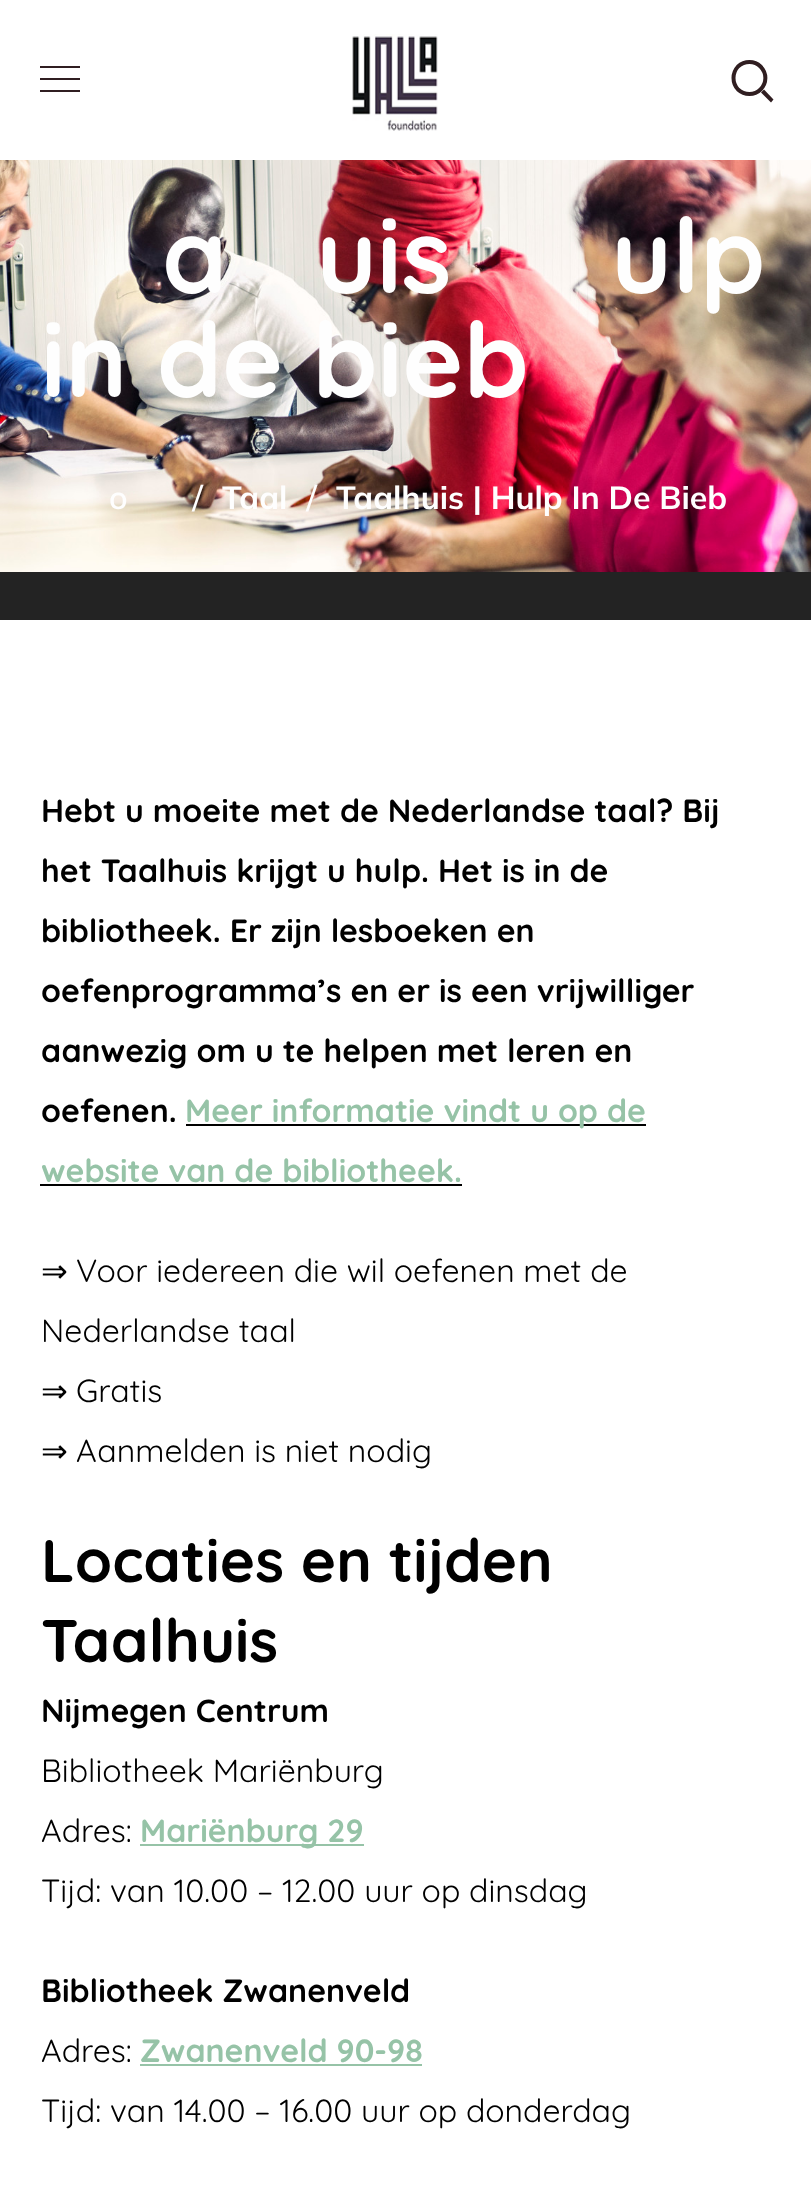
<svg xmlns="http://www.w3.org/2000/svg" width="811" height="2205" viewBox="0 0 811 2205">
  <rect width="100%" height="100%" fill="rgb(255,255,255)"/>
  <rect x="40" y="66" width="40" height="2" fill="rgb(48,30,33)"/>
  <rect x="40" y="78" width="40" height="2" fill="rgb(48,30,33)"/>
  <rect x="40" y="90" width="40" height="2" fill="rgb(48,30,33)"/>
  <image x="352" y="34" width="86" height="97" href="pic1.png"/>
  <path d="M760.5 66.5C767 73 767 83 760.5 89.5C754.5 95.5 744.5 95.5 738 89.5C732 83 732 73 738 66.5C744.5 60.5 754.5 60.5 760.5 66.5Z" fill="none" stroke="rgb(48,30,33)" stroke-width="4"/>
  <path d="M761 92.5L764 89.5L773.5 99.5L771 102.5Z" fill="rgb(48,30,33)"/>
  <rect x="0" y="572" width="811" height="48" fill="rgb(35,35,35)"/>
  <image x="0" y="160" width="811" height="412" href="pic2.png"/>
  <g font-family="Quicksand" font-size="104" font-weight="bold" fill="rgb(254,254,254)">
    <text x="162" y="293">a</text>
    <text x="316" y="293">uis</text>
    <text x="611" y="293">ulp</text>
    <text x="41" y="397">in de bieb</text>
  </g>
  <text x="109" y="509" font-family="Mulish" font-size="32" font-weight="600" fill="rgb(254,254,254)">o</text>
  <text x="192" y="511" font-family="Liberation Serif" font-size="40" font-weight="bold" fill="rgb(254,254,254)">/</text>
  <text x="222" y="509" font-family="Mulish" font-size="32" font-weight="bold" fill="rgb(254,254,254)">Taal</text>
  <text x="306" y="511" font-family="Liberation Serif" font-size="40" font-weight="bold" fill="rgb(254,254,254)">/</text>
  <text x="336" y="509" font-family="Mulish" font-size="32" font-weight="bold" fill="rgb(254,254,254)">Taalhuis | Hulp In De Bieb</text>
  <g font-family="Quicksand" font-size="32" font-weight="bold" fill="rgb(0,0,0)">
    <text>
      <tspan x="41" y="822">Hebt u moeite met de Nederlandse taal? Bij</tspan>
      <tspan x="41" y="882">het Taalhuis krijgt u hulp. Het is in de</tspan>
      <tspan x="41" y="942">bibliotheek. Er zijn lesboeken en</tspan>
      <tspan x="41" y="1002">oefenprogramma’s en er is een vrijwilliger</tspan>
      <tspan x="41" y="1062">aanwezig om u te helpen met leren en</tspan>
      <tspan x="41" y="1122">oefenen.</tspan>
    </text>
  </g>
  <rect x="186" y="1124" width="460" height="2" fill="rgb(0,0,0)"/>
  <g font-family="Quicksand" font-size="32" font-weight="bold" fill="rgb(150,195,167)">
    <text x="185" y="1122">Meer informatie vindt u op de</text>
    <text x="41" y="1182">website van de bibliotheek.</text>
  </g>
  <rect x="40" y="1184" width="422" height="2" fill="rgb(0,0,0)"/>
  <text x="41" y="1282" font-family="DejaVu Sans" font-size="32" fill="rgb(0,0,0)">⇒</text>
  <g font-family="Quicksand" font-size="32" fill="rgb(0,0,0)">
    <text x="76" y="1282">Voor iedereen die wil oefenen met de</text>
    <text x="41" y="1342">Nederlandse taal</text>
  </g>
  <text x="41" y="1402" font-family="DejaVu Sans" font-size="32" fill="rgb(0,0,0)">⇒</text>
  <text x="76" y="1402" font-family="Quicksand" font-size="32" fill="rgb(0,0,0)">Gratis</text>
  <text x="41" y="1462" font-family="DejaVu Sans" font-size="32" fill="rgb(0,0,0)">⇒</text>
  <text x="76" y="1462" font-family="Quicksand" font-size="32" fill="rgb(0,0,0)">Aanmelden is niet nodig</text>
  <g font-family="Quicksand" font-size="60" font-weight="bold" fill="rgb(0,0,0)">
    <text>
      <tspan x="41" y="1582">Locaties en tijden</tspan>
      <tspan x="41" y="1662">Taalhuis</tspan>
    </text>
  </g>
  <text x="41" y="1722" font-family="Quicksand" font-size="32" font-weight="bold" fill="rgb(0,0,0)">Nijmegen Centrum</text>
  <g font-family="Quicksand" font-size="32" fill="rgb(0,0,0)">
    <text>
      <tspan x="41" y="1782">Bibliotheek Mariënburg</tspan>
      <tspan x="41" y="1842">Adres:</tspan>
    </text>
  </g>
  <rect x="140" y="1844" width="224" height="2" fill="rgb(150,195,167)"/>
  <text x="140" y="1842" font-family="Quicksand" font-size="32" font-weight="bold" fill="rgb(150,195,167)">Mariënburg 29</text>
  <text x="41" y="1902" font-family="Quicksand" font-size="32" fill="rgb(0,0,0)">Tijd: van 10.00 – 12.00 uur op dinsdag</text>
  <text x="41" y="2002" font-family="Quicksand" font-size="32" font-weight="bold" fill="rgb(0,0,0)">Bibliotheek Zwanenveld</text>
  <text x="41" y="2062" font-family="Quicksand" font-size="32" fill="rgb(0,0,0)">Adres:</text>
  <text x="140" y="2062" font-family="Quicksand" font-size="32" font-weight="bold" fill="rgb(150,195,167)">Zwanenveld 90-98</text>
  <rect x="140" y="2064" width="282" height="2" fill="rgb(150,195,167)"/>
  <text x="41" y="2122" font-family="Quicksand" font-size="32" fill="rgb(0,0,0)">Tijd: van 14.00 – 16.00 uur op donderdag</text>
</svg>
